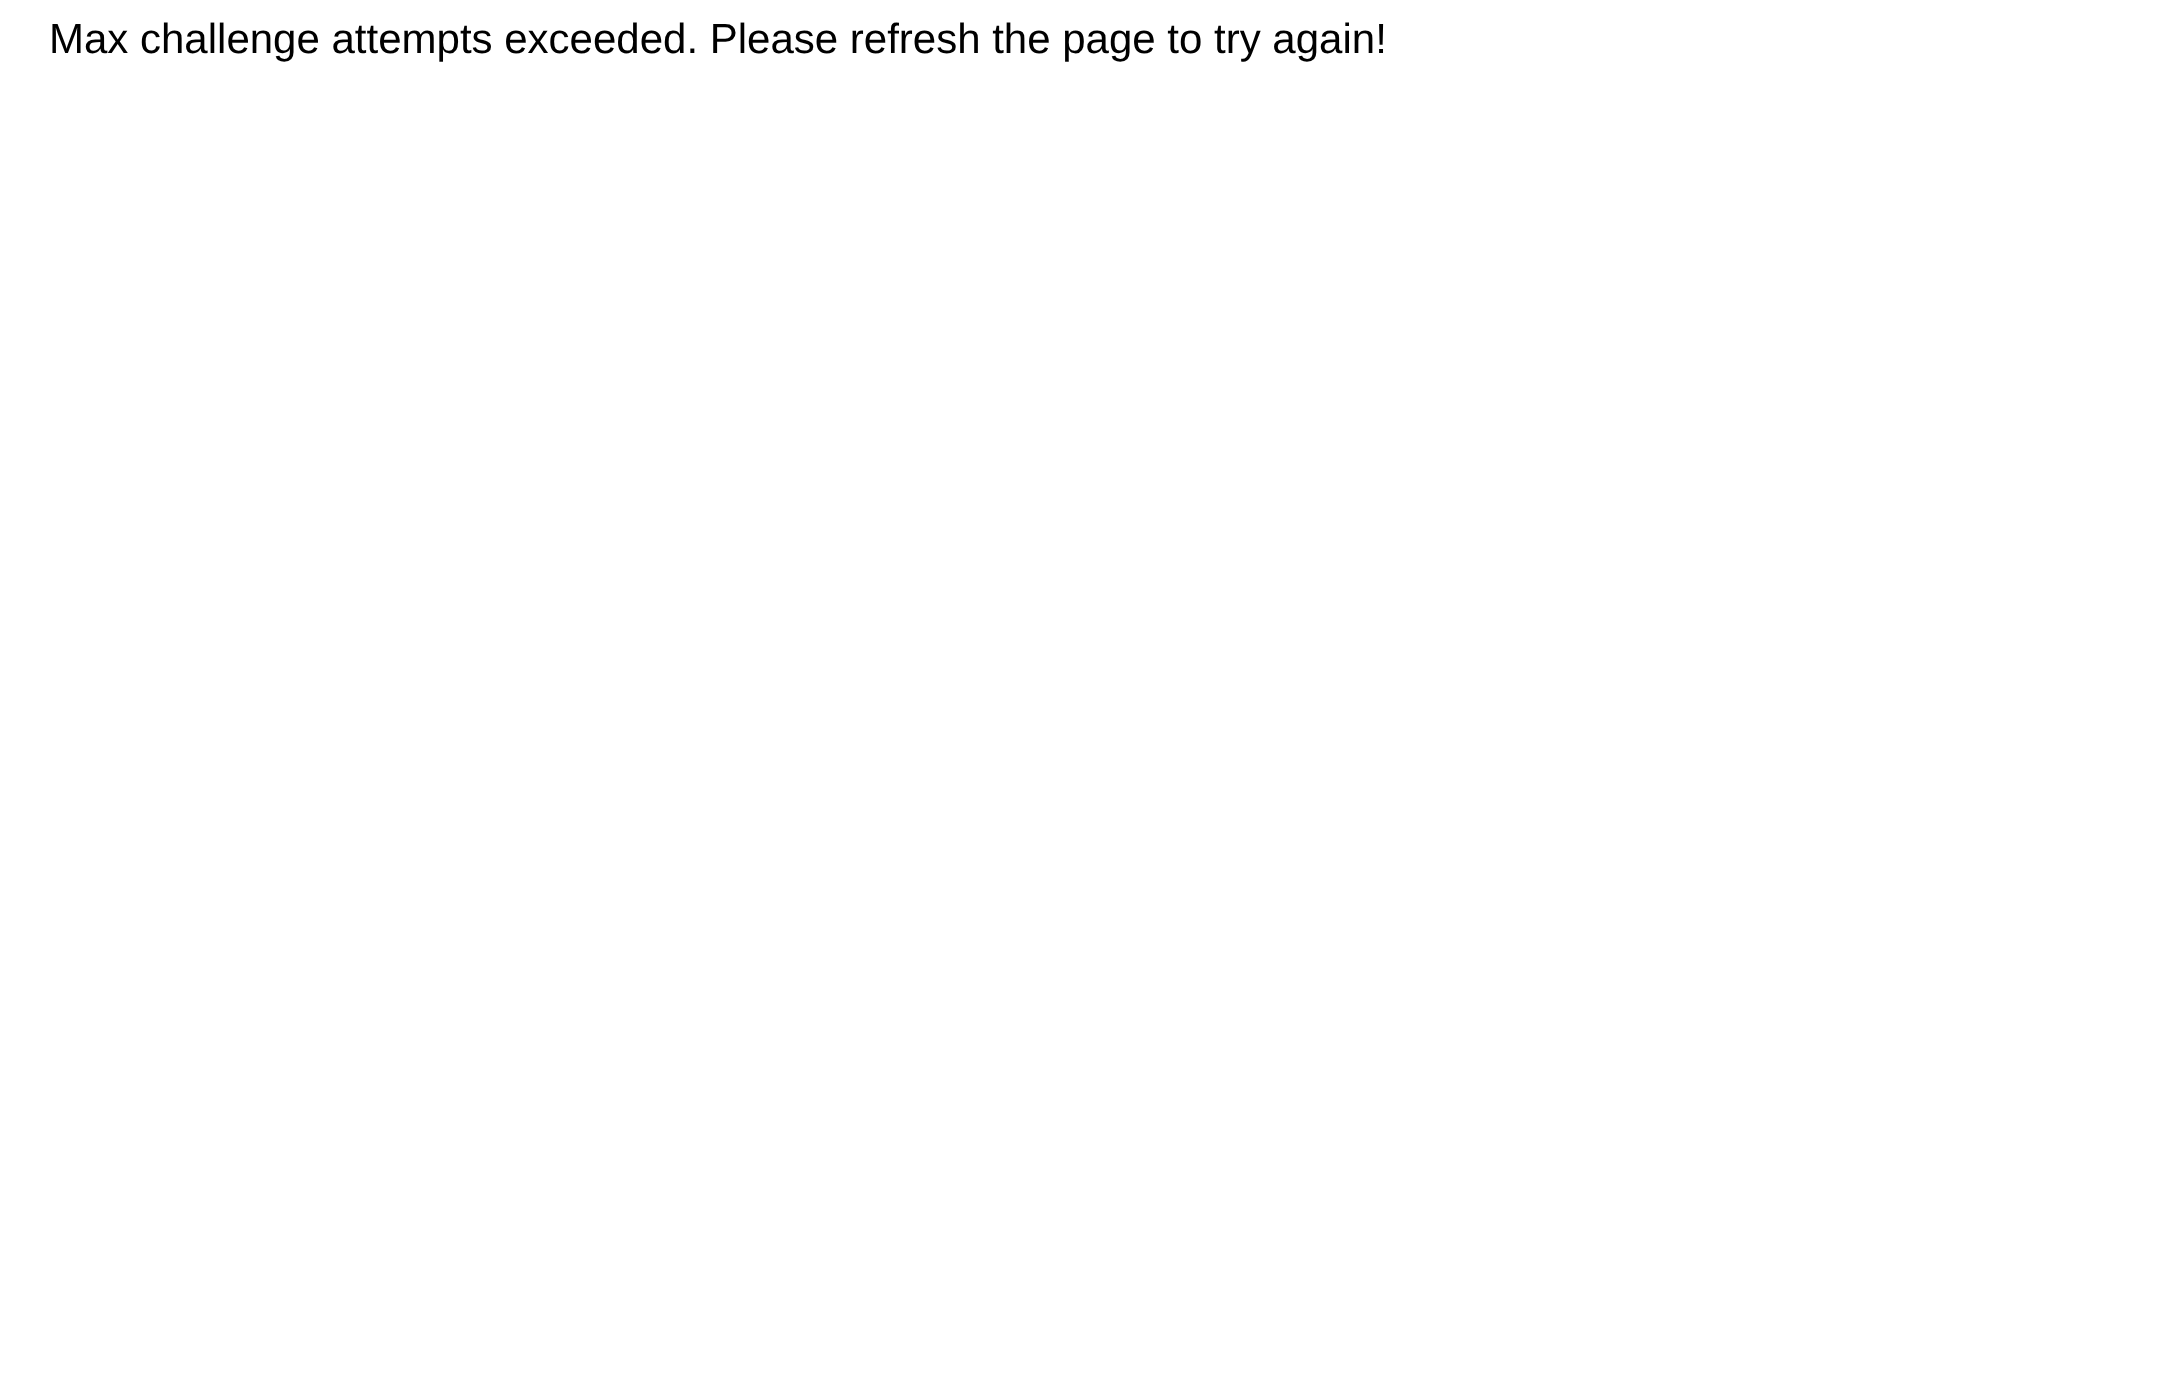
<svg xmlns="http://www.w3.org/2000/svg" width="2178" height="1400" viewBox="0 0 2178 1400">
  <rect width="100%" height="100%" fill="rgb(255,255,255)"/>
  <text x="49" y="53" font-family="Liberation Sans" font-size="42" fill="rgb(0,0,0)">Max challenge attempts exceeded. Please refresh the page to try again!</text>
</svg>
